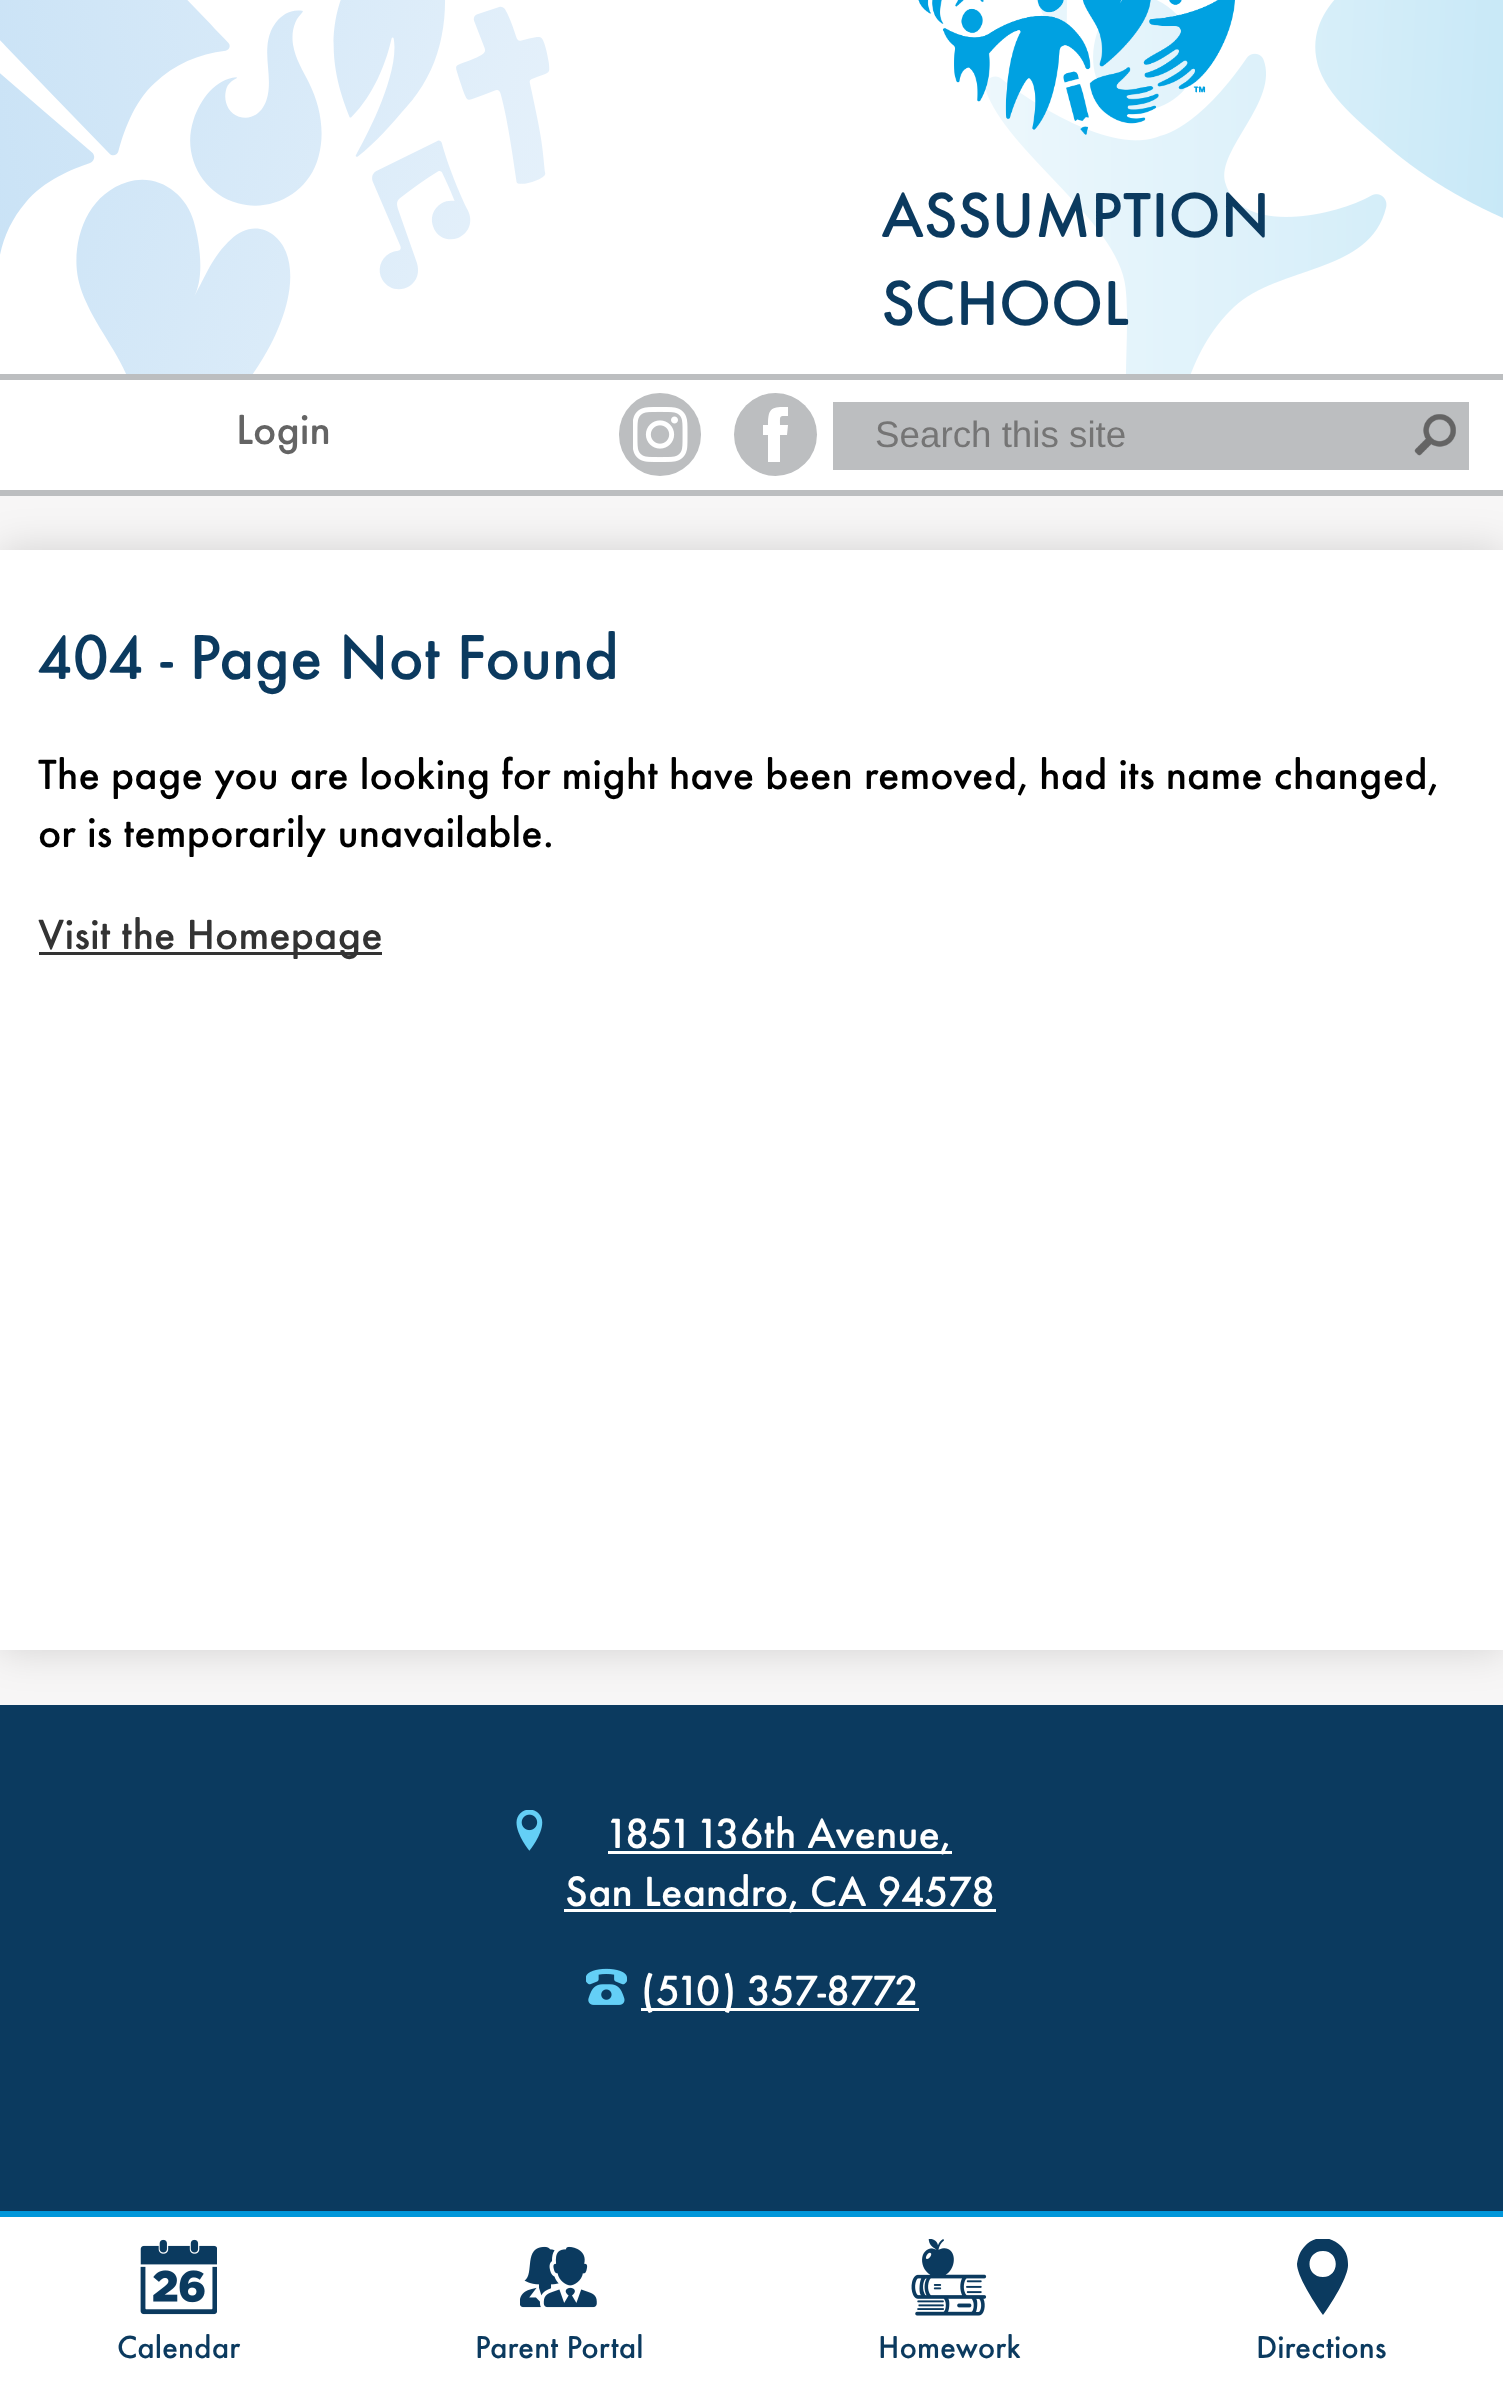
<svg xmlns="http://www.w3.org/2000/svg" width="1503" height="2391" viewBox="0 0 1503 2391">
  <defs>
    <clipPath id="clip1"><rect x="1284" y="2239" width="77" height="77"/></clipPath>
  </defs>
  <rect width="100%" height="100%" fill="rgb(247,246,246)"/>
  <rect x="0" y="0" width="1503" height="374" fill="rgb(255,255,255)"/>
  <image x="0" y="0" width="550" height="374" href="pic1.png"/>
  <image x="985" y="0" width="518" height="374" href="pic2.png"/>
  <image x="918" y="0" width="317" height="135" href="pic3.png"/>
  <g font-family="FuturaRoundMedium" font-size="66" fill="rgb(11,58,95)">
    <text>
      <tspan x="881" y="237">ASSUMPTION</tspan>
      <tspan x="881" y="325">SCHOOL</tspan>
    </text>
  </g>
  <rect x="0" y="550" width="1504" height="1100" fill="rgba(0,0,0,0.15)" filter="blur(20.5px)"/>
  <rect x="0" y="380" width="1503" height="110" fill="rgb(255,255,255)"/>
  <rect x="0" y="374" width="1503" height="6" fill="rgb(188,190,192)"/>
  <rect x="0" y="490" width="1503" height="6" fill="rgb(188,190,192)"/>
  <text x="236" y="444" font-family="FuturaRoundMedium" font-size="44" fill="rgb(100,100,100)">Login</text>
  <rect x="619" y="393" width="82" height="83" rx="41" fill="rgb(188,190,192)"/>
  <image x="633" y="407" width="55" height="55" href="pic4.png"/>
  <circle cx="775.5" cy="434.5" r="41.5" fill="rgb(188,190,192)"/>
  <path d="M788 425H780C780 415 779 416 788 416V407C772 407 768 407 768 425H763V435H768V462H780V435H787Z" fill="rgb(255,255,255)"/>
  <rect x="833" y="402" width="636" height="68" fill="rgb(188,190,192)"/>
  <text x="875" y="447" font-family="Liberation Sans" font-size="36.75" fill="rgb(117,117,117)">Search this site</text>
  <image x="1414" y="414" width="42" height="42" href="pic5.png"/>
  <rect x="0" y="550" width="1503" height="1100" fill="rgb(255,255,255)"/>
  <text x="38" y="679" font-family="FuturaRoundMedium" font-size="66" fill="rgb(11,58,95)">404 - Page Not Found</text>
  <g font-family="FuturaRoundMedium" font-size="44" fill="rgb(0,0,0)">
    <text>
      <tspan x="38" y="789">The page you are looking for might have been removed, had its name changed,</tspan>
      <tspan x="38" y="847">or is temporarily unavailable.</tspan>
    </text>
  </g>
  <rect x="39" y="952" width="343" height="3" fill="rgb(51,51,51)"/>
  <text x="38" y="949" font-family="FuturaRoundMedium" font-size="44" fill="rgb(51,51,51)">Visit the Homepage</text>
  <rect x="0" y="1705" width="1503" height="506" fill="rgb(11,58,95)"/>
  <image x="516" y="1810" width="27" height="41" href="pic6.png"/>
  <rect x="608" y="1851" width="344" height="3" fill="rgb(255,255,255)"/>
  <text x="609" y="1848" font-family="FuturaRoundMedium" font-size="44" fill="rgb(255,255,255)">1851 136th Avenue,</text>
  <rect x="564" y="1909" width="432" height="3" fill="rgb(255,255,255)"/>
  <text x="565" y="1906" font-family="FuturaRoundMedium" font-size="44" fill="rgb(255,255,255)">San Leandro, CA 94578</text>
  <image x="586" y="1968" width="41" height="37" href="pic7.png"/>
  <rect x="641" y="2008" width="278" height="3" fill="rgb(255,255,255)"/>
  <text x="641" y="2005" font-family="FuturaRoundMedium" font-size="44" fill="rgb(255,255,255)">(510) 357-8772</text>
  <rect x="0" y="2217" width="1503" height="174" fill="rgb(255,255,255)"/>
  <rect x="0" y="2211" width="1503" height="6" fill="rgb(0,151,218)"/>
  <image x="140" y="2239" width="77" height="76" href="pic8.png"/>
  <text x="117" y="2358" font-family="FuturaRoundMedium" font-size="33" fill="rgb(11,58,95)">Calendar</text>
  <image x="520" y="2246" width="77" height="62" href="pic9.png"/>
  <text x="475" y="2358" font-family="FuturaRoundMedium" font-size="33" fill="rgb(11,58,95)">Parent Portal</text>
  <image x="911" y="2239" width="76" height="77" href="pic10.png"/>
  <text x="878" y="2358" font-family="FuturaRoundMedium" font-size="33" fill="rgb(11,58,95)">Homework</text>
  <g clip-path="url(#clip1)">
    <path d="M1323 2238C1316 2238 1309 2241 1305 2246C1300 2251 1298 2257 1297 2264C1297 2276 1315 2304 1323 2315C1331 2304 1349 2276 1348 2264C1348 2257 1346 2251 1341 2246C1336 2241 1329 2238 1323 2238ZM1323 2277C1305 2277 1305 2251 1323 2251C1340 2251 1340 2277 1323 2277Z" fill="rgb(11,58,95)"/>
  </g>
  <text x="1256" y="2358" font-family="FuturaRoundMedium" font-size="33" fill="rgb(11,58,95)">Directions</text>
</svg>
